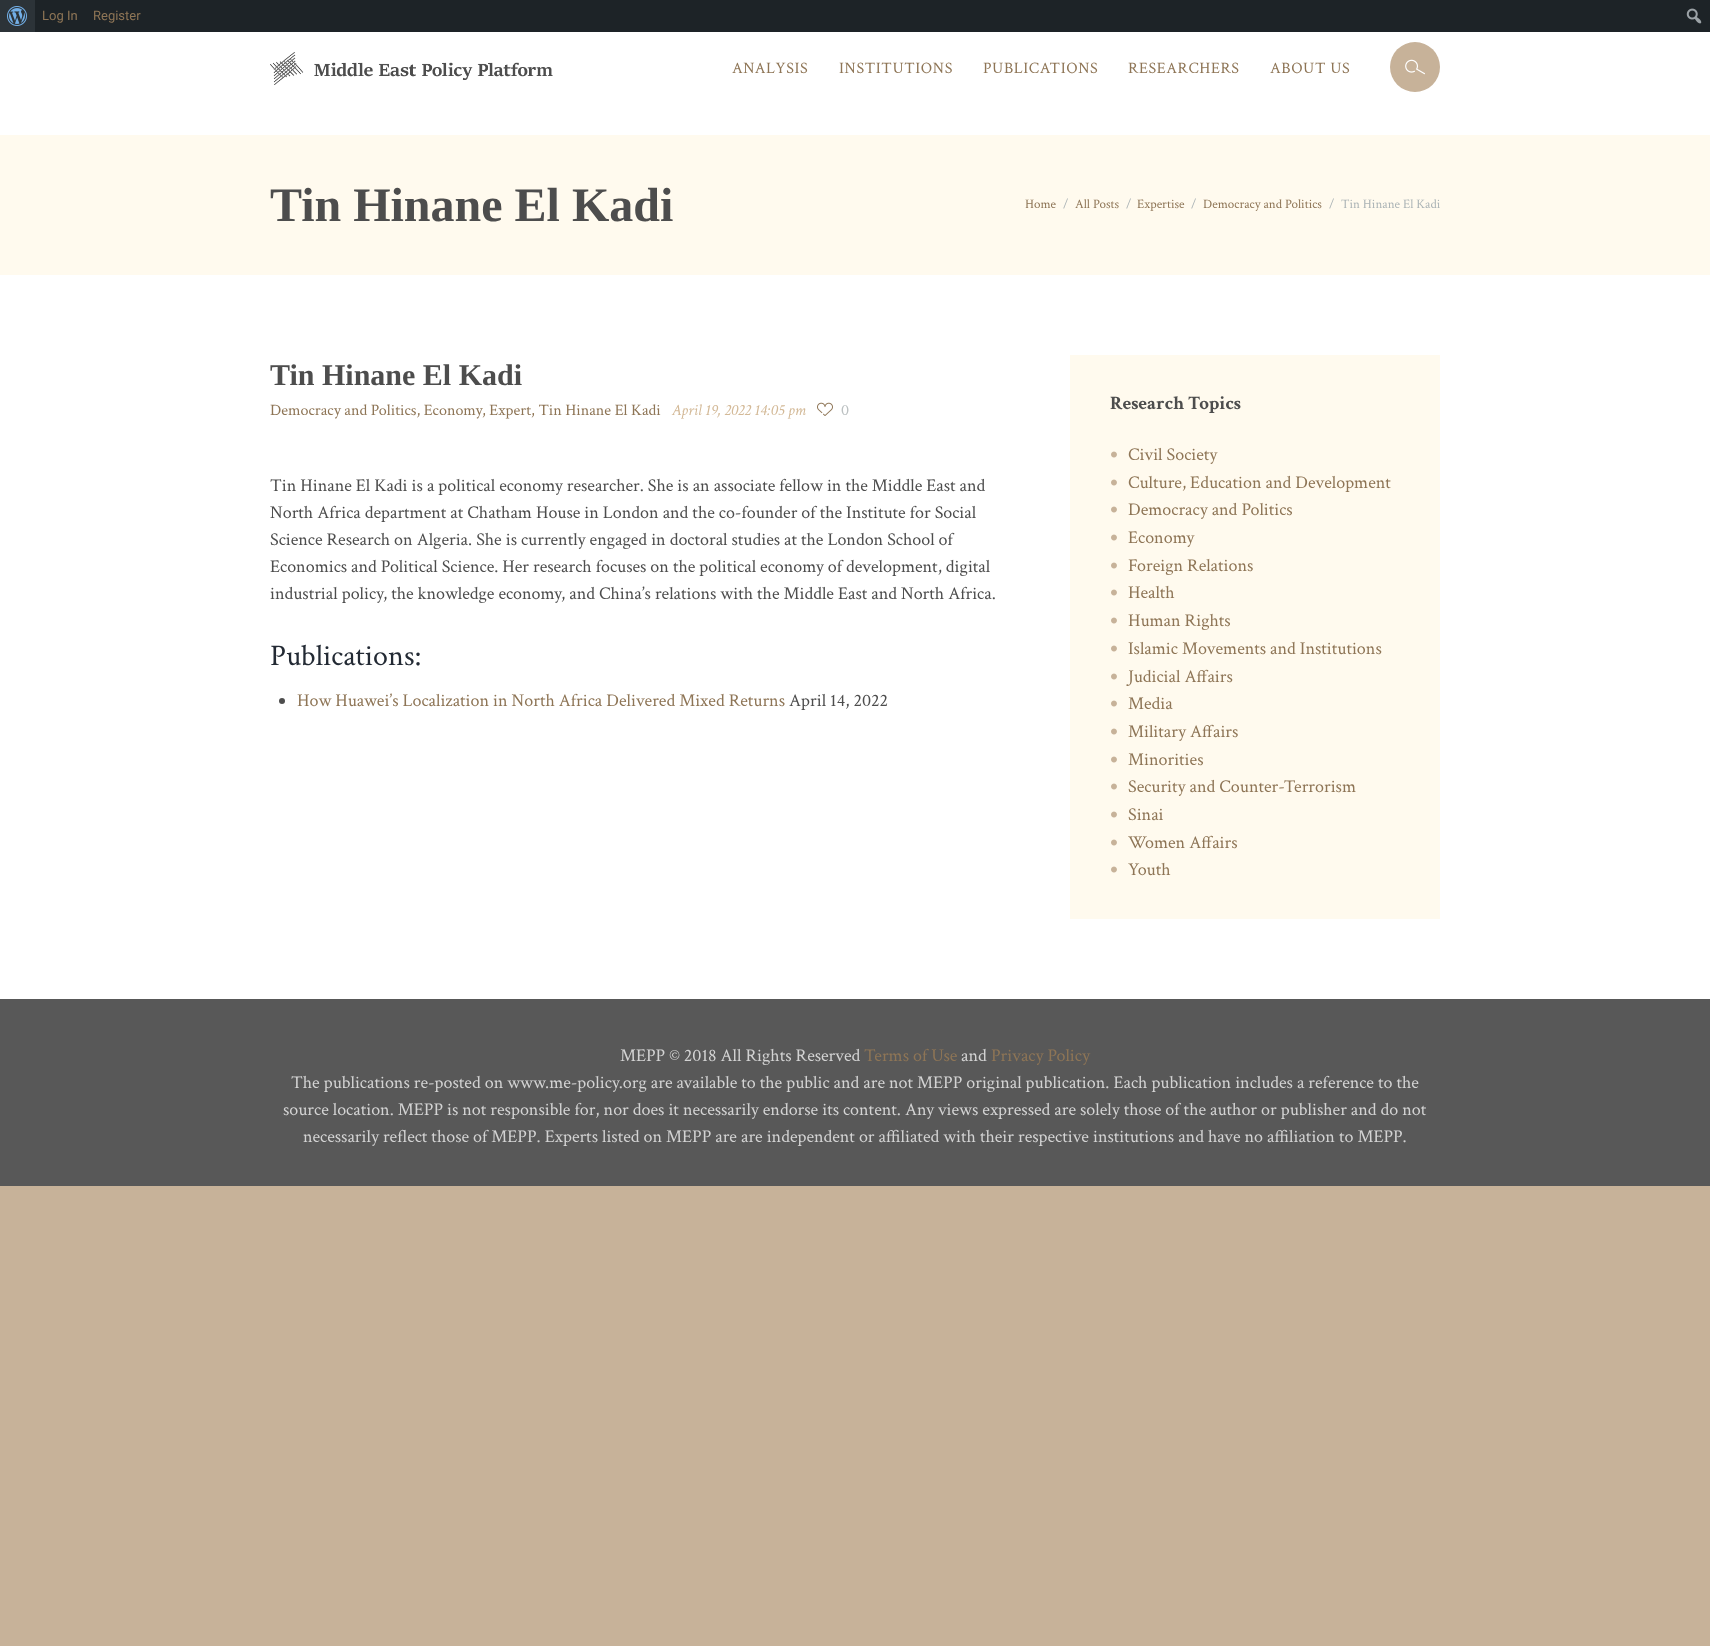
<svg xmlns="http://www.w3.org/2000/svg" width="1710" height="1646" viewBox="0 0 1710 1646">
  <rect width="100%" height="100%" fill="rgb(199,178,153)"/>
  <rect x="35" y="0" width="1675" height="32" fill="rgb(29,35,39)"/>
  <rect x="0" y="0" width="35" height="32" fill="rgb(44,51,56)"/>
  <image x="7" y="6" width="20" height="20" href="pic1.png"/>
  <g font-family="Roboto" font-size="13" fill="rgb(142,117,86)">
    <text x="42" y="20">Log In</text>
    <text x="93" y="20">Register</text>
  </g>
  <image x="1686" y="8" width="16" height="16" href="pic2.png"/>
  <rect x="0" y="32" width="1710" height="967" fill="rgb(255,255,255)"/>
  <image x="270" y="52" width="283" height="33" href="pic3.png"/>
  <g font-family="Crimson Text" font-size="16" letter-spacing="0.6" fill="rgb(142,117,86)">
    <text x="732" y="73">ANALYSIS</text>
    <text x="839" y="73">INSTITUTIONS</text>
    <text x="983" y="73">PUBLICATIONS</text>
    <text x="1128" y="73">RESEARCHERS</text>
    <text x="1270" y="73">ABOUT US</text>
  </g>
  <circle cx="1415" cy="67" r="25" fill="rgb(199,178,153)"/>
  <image x="1405" y="59" width="20" height="16" href="pic4.png"/>
  <rect x="0" y="135" width="1710" height="140" fill="rgb(255,250,238)"/>
  <text x="270" y="221" font-family="Liberation Serif" font-size="48" font-weight="bold" fill="rgb(77,77,77)">Tin Hinane El Kadi</text>
  <text x="1025" y="208" font-family="Crimson Text" font-size="13" fill="rgb(142,117,86)">Home</text>
  <text x="1063" y="208" font-family="Crimson Text" font-size="13" fill="rgb(172,180,182)">/</text>
  <text x="1075" y="208" font-family="Crimson Text" font-size="13" fill="rgb(142,117,86)">All Posts</text>
  <text x="1126" y="208" font-family="Crimson Text" font-size="13" fill="rgb(172,180,182)">/</text>
  <text x="1137" y="208" font-family="Crimson Text" font-size="13" fill="rgb(142,117,86)">Expertise</text>
  <text x="1191" y="208" font-family="Crimson Text" font-size="13" fill="rgb(172,180,182)">/</text>
  <text x="1203" y="208" font-family="Crimson Text" font-size="13" fill="rgb(142,117,86)">Democracy and Politics</text>
  <g font-family="Crimson Text" font-size="13" fill="rgb(172,180,182)">
    <text x="1329" y="208">/</text>
    <text x="1341" y="208">Tin Hinane El Kadi</text>
  </g>
  <text x="270" y="385" font-family="Liberation Serif" font-size="30" font-weight="bold" fill="rgb(77,77,77)">Tin Hinane El Kadi</text>
  <g font-family="Crimson Text" font-size="16" fill="rgb(142,117,86)">
    <text x="270" y="415">Democracy and Politics, Economy</text>
    <text x="482" y="415">, Expert, Tin Hinane El Kadi</text>
  </g>
  <text x="672" y="415" font-family="Crimson Text" font-size="16" font-style="italic" fill="rgb(211,185,151)">April 19, 2022 14:05 pm</text>
  <image x="817" y="402" width="16" height="14" href="pic5.png"/>
  <text x="841" y="415" font-family="Crimson Text" font-size="16" fill="rgb(188,193,194)">0</text>
  <g font-family="Crimson Text" font-size="18" fill="rgb(77,77,77)">
    <text>
      <tspan x="270" y="491">Tin Hinane El Kadi is a political economy researcher. She is an associate fellow in the Middle East and</tspan>
      <tspan x="270" y="518">North Africa department at Chatham House in London and the co-founder of the Institute for Social</tspan>
      <tspan x="270" y="545">Science Research on Algeria. She is currently engaged in doctoral studies at the London School of</tspan>
      <tspan x="270" y="572">Economics and Political Science. Her research focuses on the political economy of development, digital</tspan>
      <tspan x="270" y="599">industrial policy, the knowledge economy, and China’s relations with the Middle East and North Africa.</tspan>
    </text>
  </g>
  <text x="270" y="665" font-family="Crimson Text" font-size="30" fill="rgb(35,42,52)">Publications:</text>
  <circle cx="282" cy="701" r="3" fill="rgb(77,77,77)"/>
  <text x="297" y="706" font-family="Crimson Text" font-size="18" fill="rgb(142,117,86)">How Huawei’s Localization in North Africa Delivered Mixed Returns</text>
  <text x="789" y="706" font-family="Crimson Text" font-size="18" fill="rgb(77,77,77)">April 14, 2022</text>
  <rect x="1070" y="355" width="370" height="564" fill="rgb(255,250,238)"/>
  <text x="1110" y="409" font-family="Crimson Text" font-size="19" font-weight="bold" fill="rgb(77,77,77)">Research Topics</text>
  <image x="1111" y="451" width="6" height="7" href="pic6.png"/>
  <text x="1128" y="460" font-family="Crimson Text" font-size="18" fill="rgb(142,117,86)">Civil Society</text>
  <image x="1111" y="479" width="6" height="7" href="pic6.png"/>
  <text x="1128" y="488" font-family="Crimson Text" font-size="18" fill="rgb(142,117,86)">Culture, Education and Development</text>
  <image x="1111" y="506" width="6" height="7" href="pic6.png"/>
  <text x="1128" y="515" font-family="Crimson Text" font-size="18" fill="rgb(142,117,86)">Democracy and Politics</text>
  <image x="1111" y="534" width="6" height="7" href="pic6.png"/>
  <text x="1128" y="543" font-family="Crimson Text" font-size="18" fill="rgb(142,117,86)">Economy</text>
  <image x="1111" y="562" width="6" height="7" href="pic6.png"/>
  <text x="1128" y="571" font-family="Crimson Text" font-size="18" fill="rgb(142,117,86)">Foreign Relations</text>
  <image x="1111" y="589" width="6" height="7" href="pic6.png"/>
  <text x="1128" y="598" font-family="Crimson Text" font-size="18" fill="rgb(142,117,86)">Health</text>
  <image x="1111" y="617" width="6" height="7" href="pic6.png"/>
  <text x="1128" y="626" font-family="Crimson Text" font-size="18" fill="rgb(142,117,86)">Human Rights</text>
  <image x="1111" y="645" width="6" height="7" href="pic6.png"/>
  <text x="1128" y="654" font-family="Crimson Text" font-size="18" fill="rgb(142,117,86)">Islamic Movements and Institutions</text>
  <image x="1111" y="673" width="6" height="7" href="pic6.png"/>
  <text x="1128" y="682" font-family="Crimson Text" font-size="18" fill="rgb(142,117,86)">Judicial Affairs</text>
  <image x="1111" y="700" width="6" height="7" href="pic6.png"/>
  <text x="1128" y="709" font-family="Crimson Text" font-size="18" fill="rgb(142,117,86)">Media</text>
  <image x="1111" y="728" width="6" height="7" href="pic6.png"/>
  <text x="1128" y="737" font-family="Crimson Text" font-size="18" fill="rgb(142,117,86)">Military Affairs</text>
  <image x="1111" y="756" width="6" height="7" href="pic6.png"/>
  <text x="1128" y="765" font-family="Crimson Text" font-size="18" fill="rgb(142,117,86)">Minorities</text>
  <image x="1111" y="783" width="6" height="7" href="pic6.png"/>
  <text x="1128" y="792" font-family="Crimson Text" font-size="18" fill="rgb(142,117,86)">Security and Counter-Terrorism</text>
  <image x="1111" y="811" width="6" height="7" href="pic6.png"/>
  <text x="1128" y="820" font-family="Crimson Text" font-size="18" fill="rgb(142,117,86)">Sinai</text>
  <image x="1111" y="839" width="6" height="7" href="pic6.png"/>
  <text x="1128" y="848" font-family="Crimson Text" font-size="18" fill="rgb(142,117,86)">Women Affairs</text>
  <image x="1111" y="866" width="6" height="7" href="pic6.png"/>
  <text x="1128" y="875" font-family="Crimson Text" font-size="18" fill="rgb(142,117,86)">Youth</text>
  <rect x="0" y="999" width="1710" height="187" fill="rgb(88,88,88)"/>
  <text x="620" y="1061" font-family="Crimson Text" font-size="18" fill="rgb(211,211,211)">MEPP © 2018 All Rights Reserved</text>
  <text x="864" y="1061" font-family="Crimson Text" font-size="18" fill="rgb(142,117,86)">Terms of Use</text>
  <text x="961" y="1061" font-family="Crimson Text" font-size="18" fill="rgb(211,211,211)">and</text>
  <text x="991" y="1061" font-family="Crimson Text" font-size="18" fill="rgb(142,117,86)">Privacy Policy</text>
  <g font-family="Crimson Text" font-size="18" fill="rgb(211,211,211)">
    <text x="291" y="1088">The publications re-posted on www.me-policy.org are available to the public and are not MEPP original publication. Each publication includes a reference to the</text>
    <text x="283" y="1115">source location. MEPP is not responsible for, nor does it necessarily endorse its content. Any views expressed are solely those of the author or publisher and do not</text>
    <text x="303" y="1142">necessarily reflect those of MEPP. Experts listed on MEPP are are independent or affiliated with their respective institutions and have no affiliation to MEPP.</text>
  </g>
</svg>
